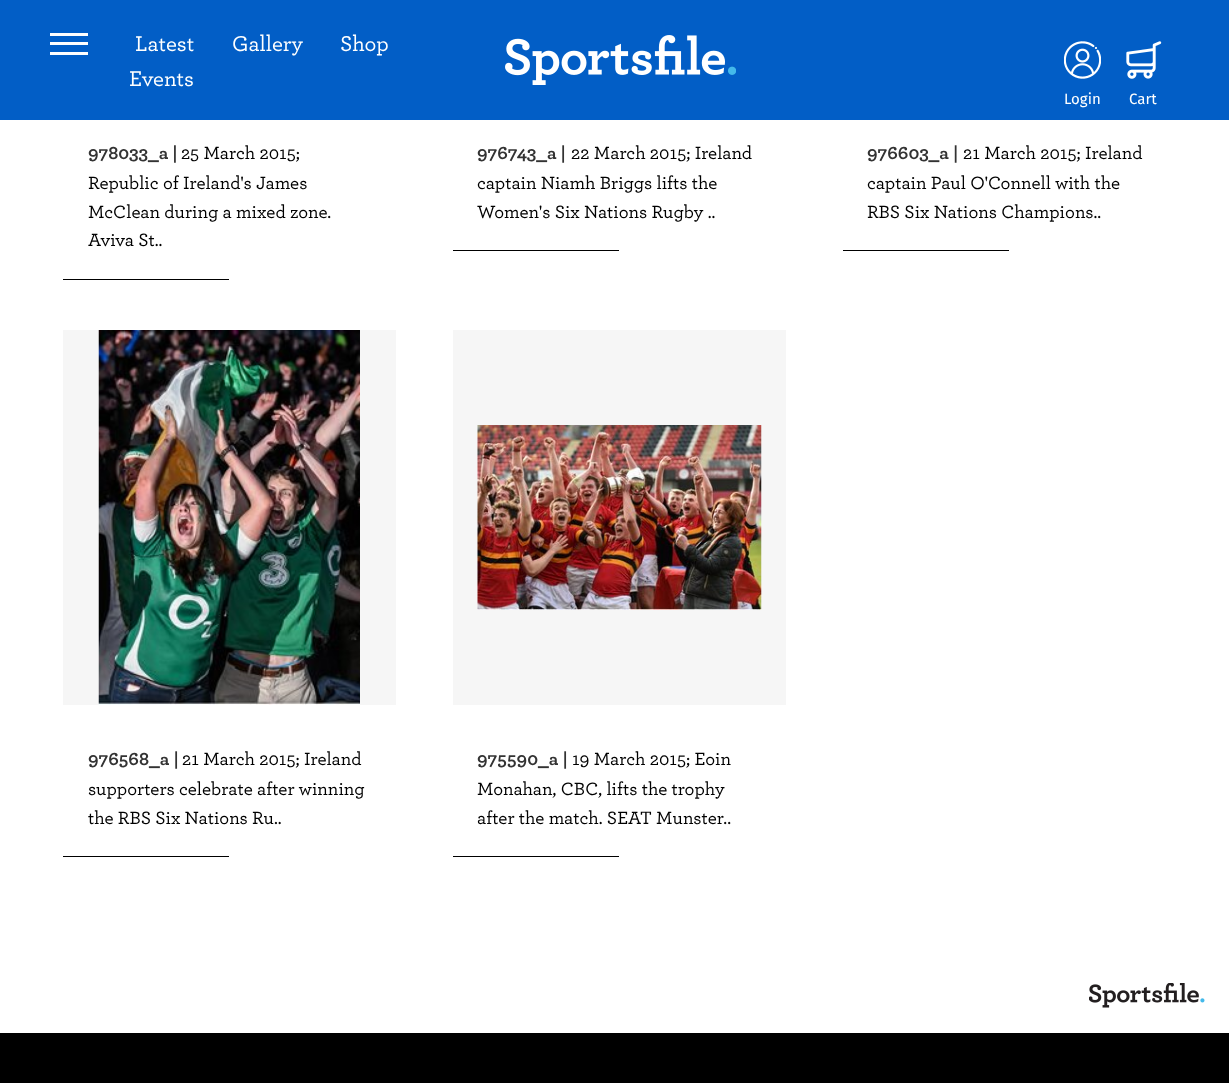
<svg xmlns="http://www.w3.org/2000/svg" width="1229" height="1083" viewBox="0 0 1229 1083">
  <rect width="100%" height="100%" fill="rgb(255,255,255)"/>
  <rect x="0" y="0" width="1229" height="120" fill="rgb(2,94,198)"/>
  <rect x="50" y="33" width="38" height="3" fill="rgb(255,255,255)"/>
  <rect x="50" y="42" width="38" height="3" fill="rgb(255,255,255)"/>
  <rect x="50" y="52" width="38" height="3" fill="rgb(255,255,255)"/>
  <g font-family="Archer" font-size="22.5" font-weight="500" fill="rgb(255,255,255)">
    <text x="135" y="51">Latest</text>
    <text x="129" y="86">Events</text>
    <text x="232" y="51">Gallery</text>
    <text x="340" y="51">Shop</text>
  </g>
  <image x="505" y="35" width="231" height="50" href="pic1.png"/>
  <image x="1064" y="41" width="37" height="38" href="pic2.png"/>
  <text x="1064" y="104" font-family="Fira Sans" font-size="15" fill="rgb(255,255,255)">Login</text>
  <image x="1126" y="41" width="36" height="38" href="pic3.png"/>
  <text x="1129" y="104" font-family="Fira Sans" font-size="15" fill="rgb(255,255,255)">Cart</text>
  <text x="88" y="159" font-family="Archer" font-size="18.75" font-weight="bold" fill="rgb(51,51,51)">978033_a |</text>
  <g font-family="Archer" font-size="18.75" font-weight="500" fill="rgb(0,0,0)">
    <text x="181" y="159">25 March 2015;</text>
    <text>
      <tspan x="88" y="189">Republic of Ireland's James</tspan>
      <tspan x="88" y="218">McClean during a mixed zone.</tspan>
      <tspan x="88" y="246">Aviva St..</tspan>
    </text>
  </g>
  <rect x="63" y="279" width="166" height="1" fill="rgb(0,0,0)"/>
  <text x="477" y="159" font-family="Archer" font-size="18.75" font-weight="bold" fill="rgb(51,51,51)">976743_a |</text>
  <g font-family="Archer" font-size="18.75" font-weight="500" fill="rgb(0,0,0)">
    <text x="571" y="159">22 March 2015; Ireland</text>
    <text>
      <tspan x="477" y="189">captain Niamh Briggs lifts the</tspan>
      <tspan x="477" y="218">Women's Six Nations Rugby ..</tspan>
    </text>
  </g>
  <rect x="453" y="250" width="166" height="1" fill="rgb(0,0,0)"/>
  <text x="867" y="159" font-family="Archer" font-size="18.75" font-weight="bold" fill="rgb(51,51,51)">976603_a |</text>
  <g font-family="Archer" font-size="18.75" font-weight="500" fill="rgb(0,0,0)">
    <text x="963" y="159">21 March 2015; Ireland</text>
    <text>
      <tspan x="867" y="189">captain Paul O'Connell with the</tspan>
      <tspan x="867" y="218">RBS Six Nations Champions..</tspan>
    </text>
  </g>
  <rect x="843" y="250" width="166" height="1" fill="rgb(0,0,0)"/>
  <rect x="63" y="330" width="333" height="375" fill="rgb(246,246,246)"/>
  <image x="98" y="330" width="262" height="375" href="pic4.png"/>
  <text x="88" y="765" font-family="Archer" font-size="18.75" font-weight="bold" fill="rgb(51,51,51)">976568_a |</text>
  <g font-family="Archer" font-size="18.75" font-weight="500" fill="rgb(0,0,0)">
    <text x="182" y="765">21 March 2015; Ireland</text>
    <text>
      <tspan x="88" y="795">supporters celebrate after winning</tspan>
      <tspan x="88" y="824">the RBS Six Nations Ru..</tspan>
    </text>
  </g>
  <rect x="63" y="856" width="166" height="1" fill="rgb(0,0,0)"/>
  <rect x="453" y="330" width="333" height="375" fill="rgb(246,246,246)"/>
  <image x="477" y="425" width="285" height="185" href="pic5.png"/>
  <text x="477" y="765" font-family="Archer" font-size="18.75" font-weight="bold" fill="rgb(51,51,51)">975590_a |</text>
  <g font-family="Archer" font-size="18.75" font-weight="500" fill="rgb(0,0,0)">
    <text x="572" y="765">19 March 2015; Eoin</text>
    <text>
      <tspan x="477" y="795">Monahan, CBC, lifts the trophy</tspan>
      <tspan x="477" y="824">after the match. SEAT Munster..</tspan>
    </text>
  </g>
  <rect x="453" y="856" width="166" height="1" fill="rgb(0,0,0)"/>
  <rect x="0" y="1033" width="1229" height="50" fill="rgb(0,0,0)"/>
  <image x="1089" y="983" width="116" height="25" href="pic6.png"/>
</svg>
